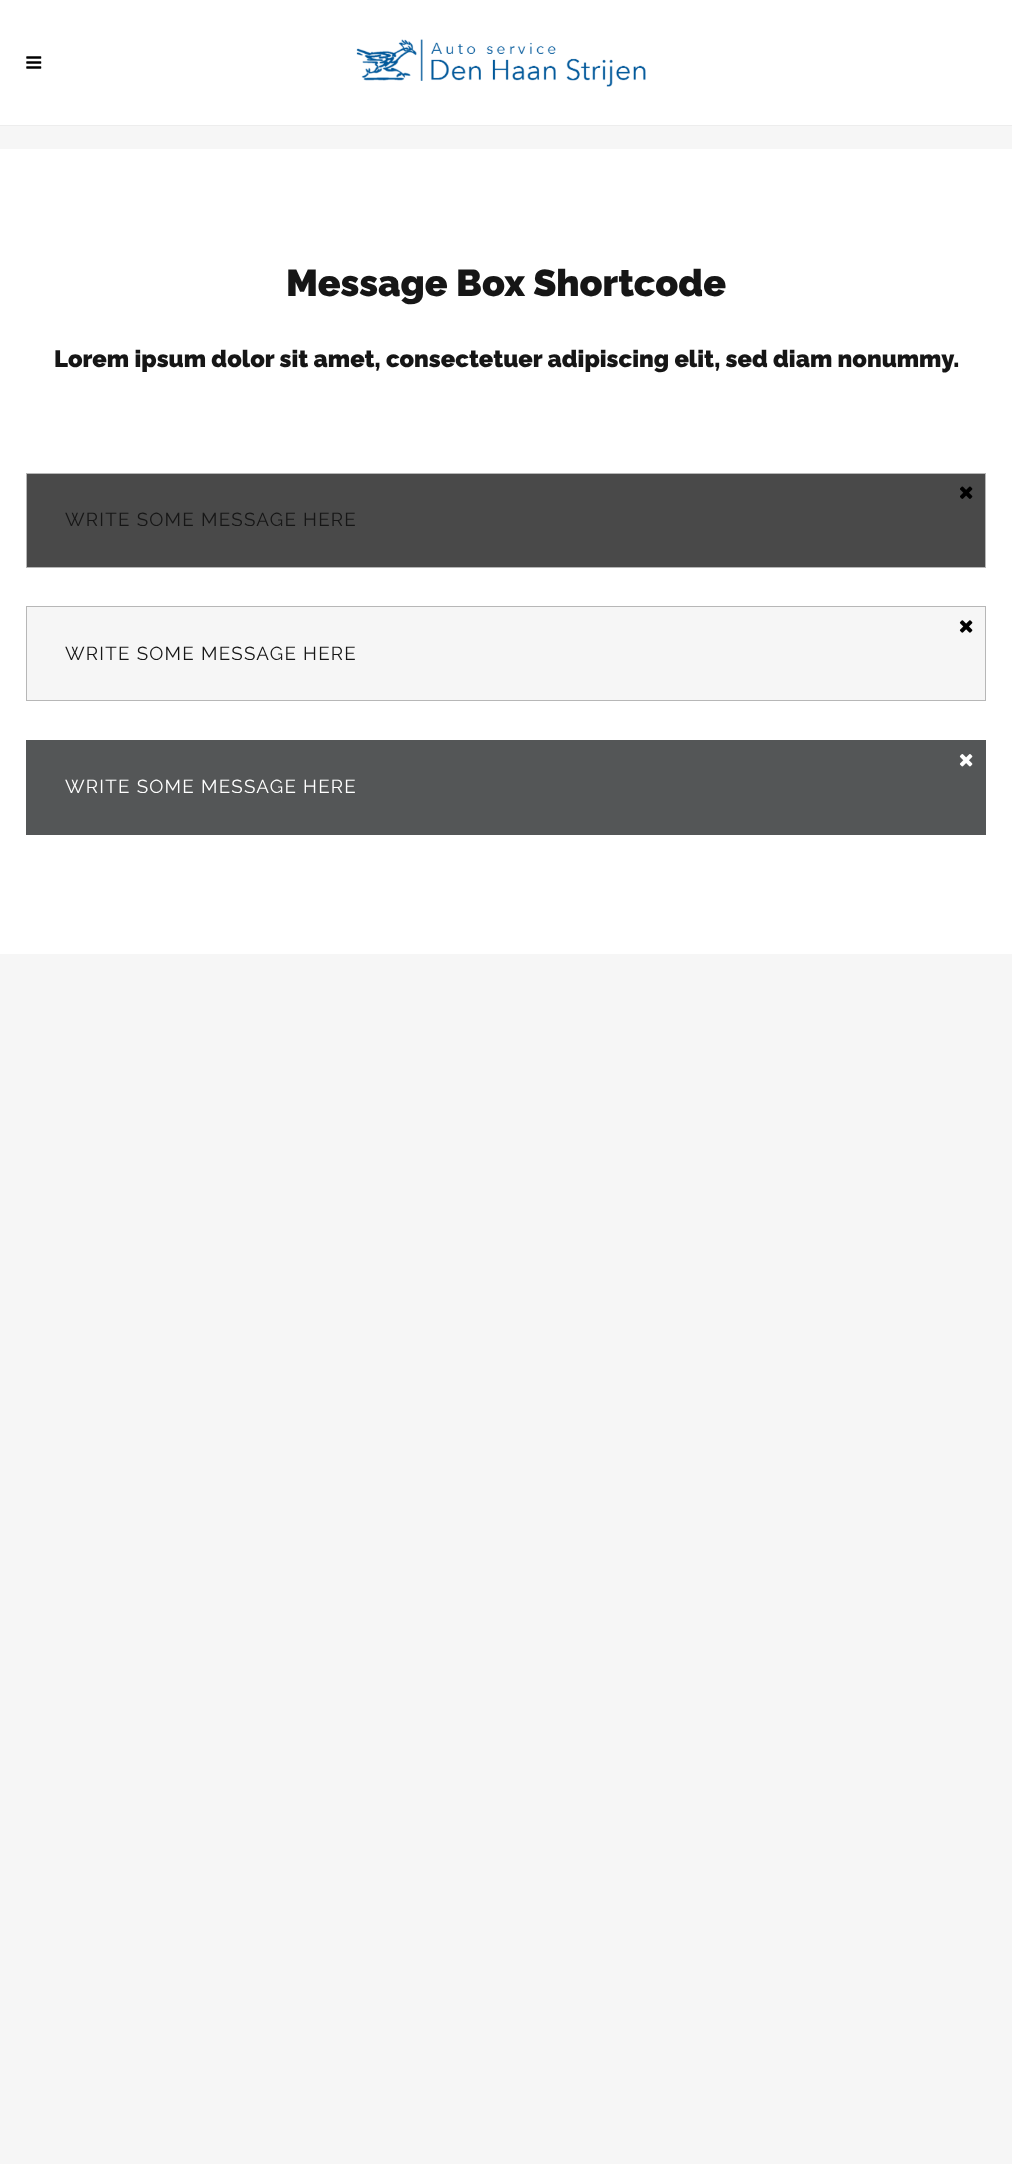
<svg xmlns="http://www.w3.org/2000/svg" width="1012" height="2164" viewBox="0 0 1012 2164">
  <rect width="100%" height="100%" fill="rgb(246,246,246)"/>
  <rect x="0" y="0" width="1012" height="125" fill="rgb(255,255,255)"/>
  <rect x="0" y="125" width="1012" height="1" fill="rgb(237,237,237)"/>
  <image x="26" y="56" width="16" height="13" href="pic1.png"/>
  <image x="356" y="39" width="290" height="48" href="pic2.png"/>
  <rect x="0" y="149" width="1012" height="805" fill="rgb(255,255,255)"/>
  <text x="286" y="296" font-family="Raleway" font-size="37.5" font-weight="900" fill="rgb(22,22,22)">Message Box Shortcode</text>
  <text x="54" y="367" font-family="Raleway" font-size="23.75" font-weight="900" fill="rgb(22,22,22)">Lorem ipsum dolor sit amet, consectetuer adipiscing elit, sed diam nonummy.</text>
  <rect x="26.5" y="473.5" width="959" height="94" fill="rgb(73,73,73)" stroke="rgb(183,183,183)"/>
  <image x="960" y="486" width="13" height="13" href="pic3.png"/>
  <text x="65" y="526" font-family="Raleway" font-size="18.75" letter-spacing="1.25" fill="rgb(22,22,22)">WRITE SOME MESSAGE HERE</text>
  <rect x="26.5" y="606.5" width="959" height="94" fill="rgb(246,246,246)" stroke="rgb(183,183,183)"/>
  <image x="959" y="620" width="14" height="13" href="pic4.png"/>
  <text x="65" y="660" font-family="Raleway" font-size="18.75" letter-spacing="1.25" fill="rgb(22,22,22)">WRITE SOME MESSAGE HERE</text>
  <rect x="26" y="740" width="960" height="95" fill="rgb(84,86,87)"/>
  <image x="959" y="754" width="14" height="13" href="pic5.png"/>
  <text x="65" y="793" font-family="Raleway" font-size="18.75" letter-spacing="1.25" fill="rgb(255,255,255)">WRITE SOME MESSAGE HERE</text>
</svg>
